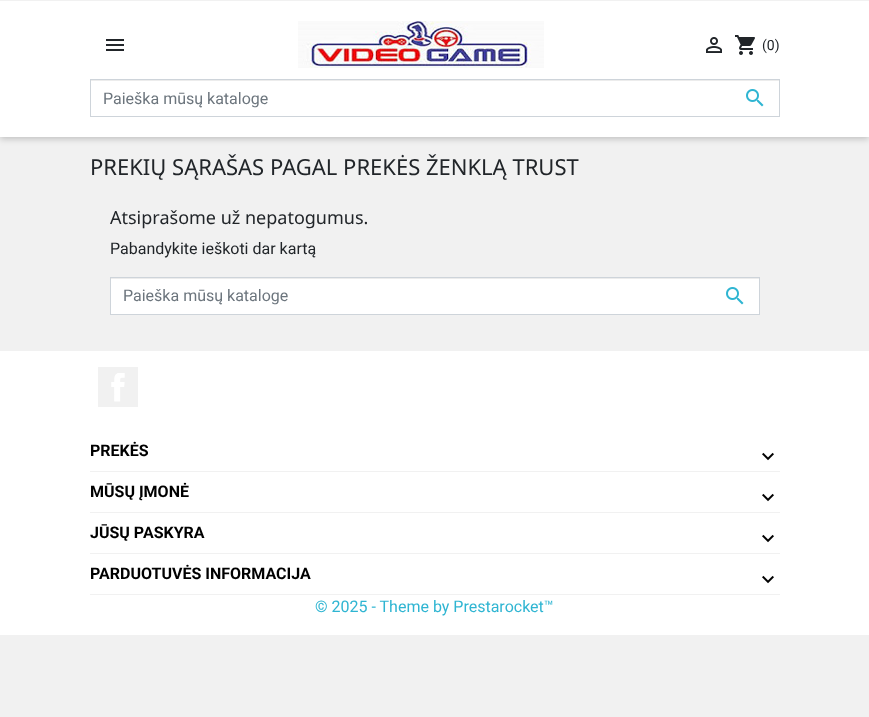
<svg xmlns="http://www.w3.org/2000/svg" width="869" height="717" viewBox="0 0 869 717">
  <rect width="100%" height="100%" fill="rgb(241,241,241)"/>
  <rect x="0" y="2" width="869" height="137" fill="rgba(0,0,0,0.2)" filter="blur(3px)"/>
  <rect x="0" y="1" width="869" height="136" fill="rgb(255,255,255)"/>
  <rect x="0" y="0" width="869" height="1" fill="rgb(241,241,241)"/>
  <image x="106" y="39" width="18" height="12" href="pic1.png"/>
  <image x="298" y="21" width="246" height="47" href="pic2.png"/>
  <image x="706" y="37" width="16" height="16" href="pic3.png"/>
  <image x="735" y="35" width="20" height="20" href="pic4.png"/>
  <text x="762" y="50" font-family="Roboto" font-size="14" fill="rgb(33,37,41)">(0)</text>
  <rect x="91" y="80" width="688" height="1" fill="rgb(236,236,236)"/>
  <rect x="90.5" y="79.5" width="689" height="37" fill="none" stroke="rgb(206,212,218)"/>
  <text x="103" y="104" font-family="Roboto" font-size="16" fill="rgb(108,117,125)">Paieška mūsų kataloge</text>
  <image x="746" y="89" width="18" height="18" href="pic5.png"/>
  <text x="90" y="175" font-family="Noto Sans" font-size="22" fill="rgb(33,37,41)">PREKIŲ SĄRAŠAS PAGAL PREKĖS ŽENKLĄ TRUST</text>
  <text x="110" y="224" font-family="Noto Sans" font-size="18" fill="rgb(33,37,41)">Atsiprašome už nepatogumus.</text>
  <text x="110" y="254" font-family="Roboto" font-size="16" fill="rgb(33,37,41)">Pabandykite ieškoti dar kartą</text>
  <rect x="111" y="279" width="648" height="35" fill="rgb(255,255,255)"/>
  <rect x="111" y="278" width="648" height="1" fill="rgb(236,236,236)"/>
  <rect x="110.5" y="277.5" width="649" height="37" fill="none" stroke="rgb(206,212,218)"/>
  <text x="123" y="301" font-family="Roboto" font-size="16" fill="rgb(108,117,125)">Paieška mūsų kataloge</text>
  <image x="726" y="287" width="18" height="18" href="pic5.png"/>
  <rect x="0" y="351" width="869" height="284" fill="rgb(255,255,255)"/>
  <rect x="98" y="367" width="40" height="40" fill="rgb(241,241,241)"/>
  <image x="111" y="373" width="14" height="29" href="pic6.png"/>
  <rect x="90" y="471" width="690" height="1" fill="rgb(241,241,241)"/>
  <text x="90" y="456" font-family="Roboto" font-size="16" font-weight="bold" fill="rgb(0,0,0)">PREKĖS</text>
  <image x="762" y="452" width="12" height="9" href="pic7.png"/>
  <rect x="90" y="512" width="690" height="1" fill="rgb(241,241,241)"/>
  <text x="90" y="497" font-family="Roboto" font-size="16" font-weight="bold" fill="rgb(0,0,0)">MŪSŲ ĮMONĖ</text>
  <image x="762" y="493" width="12" height="9" href="pic7.png"/>
  <rect x="90" y="553" width="690" height="1" fill="rgb(241,241,241)"/>
  <text x="90" y="538" font-family="Roboto" font-size="16" font-weight="bold" fill="rgb(0,0,0)">JŪSŲ PASKYRA</text>
  <image x="762" y="534" width="12" height="9" href="pic7.png"/>
  <rect x="90" y="594" width="690" height="1" fill="rgb(241,241,241)"/>
  <text x="90" y="579" font-family="Roboto" font-size="16" font-weight="bold" fill="rgb(0,0,0)">PARDUOTUVĖS INFORMACIJA</text>
  <image x="762" y="575" width="12" height="9" href="pic7.png"/>
  <text x="315" y="612" font-family="Roboto" font-size="16" fill="rgb(47,181,210)">© 2025 - Theme by Prestarocket™</text>
</svg>
